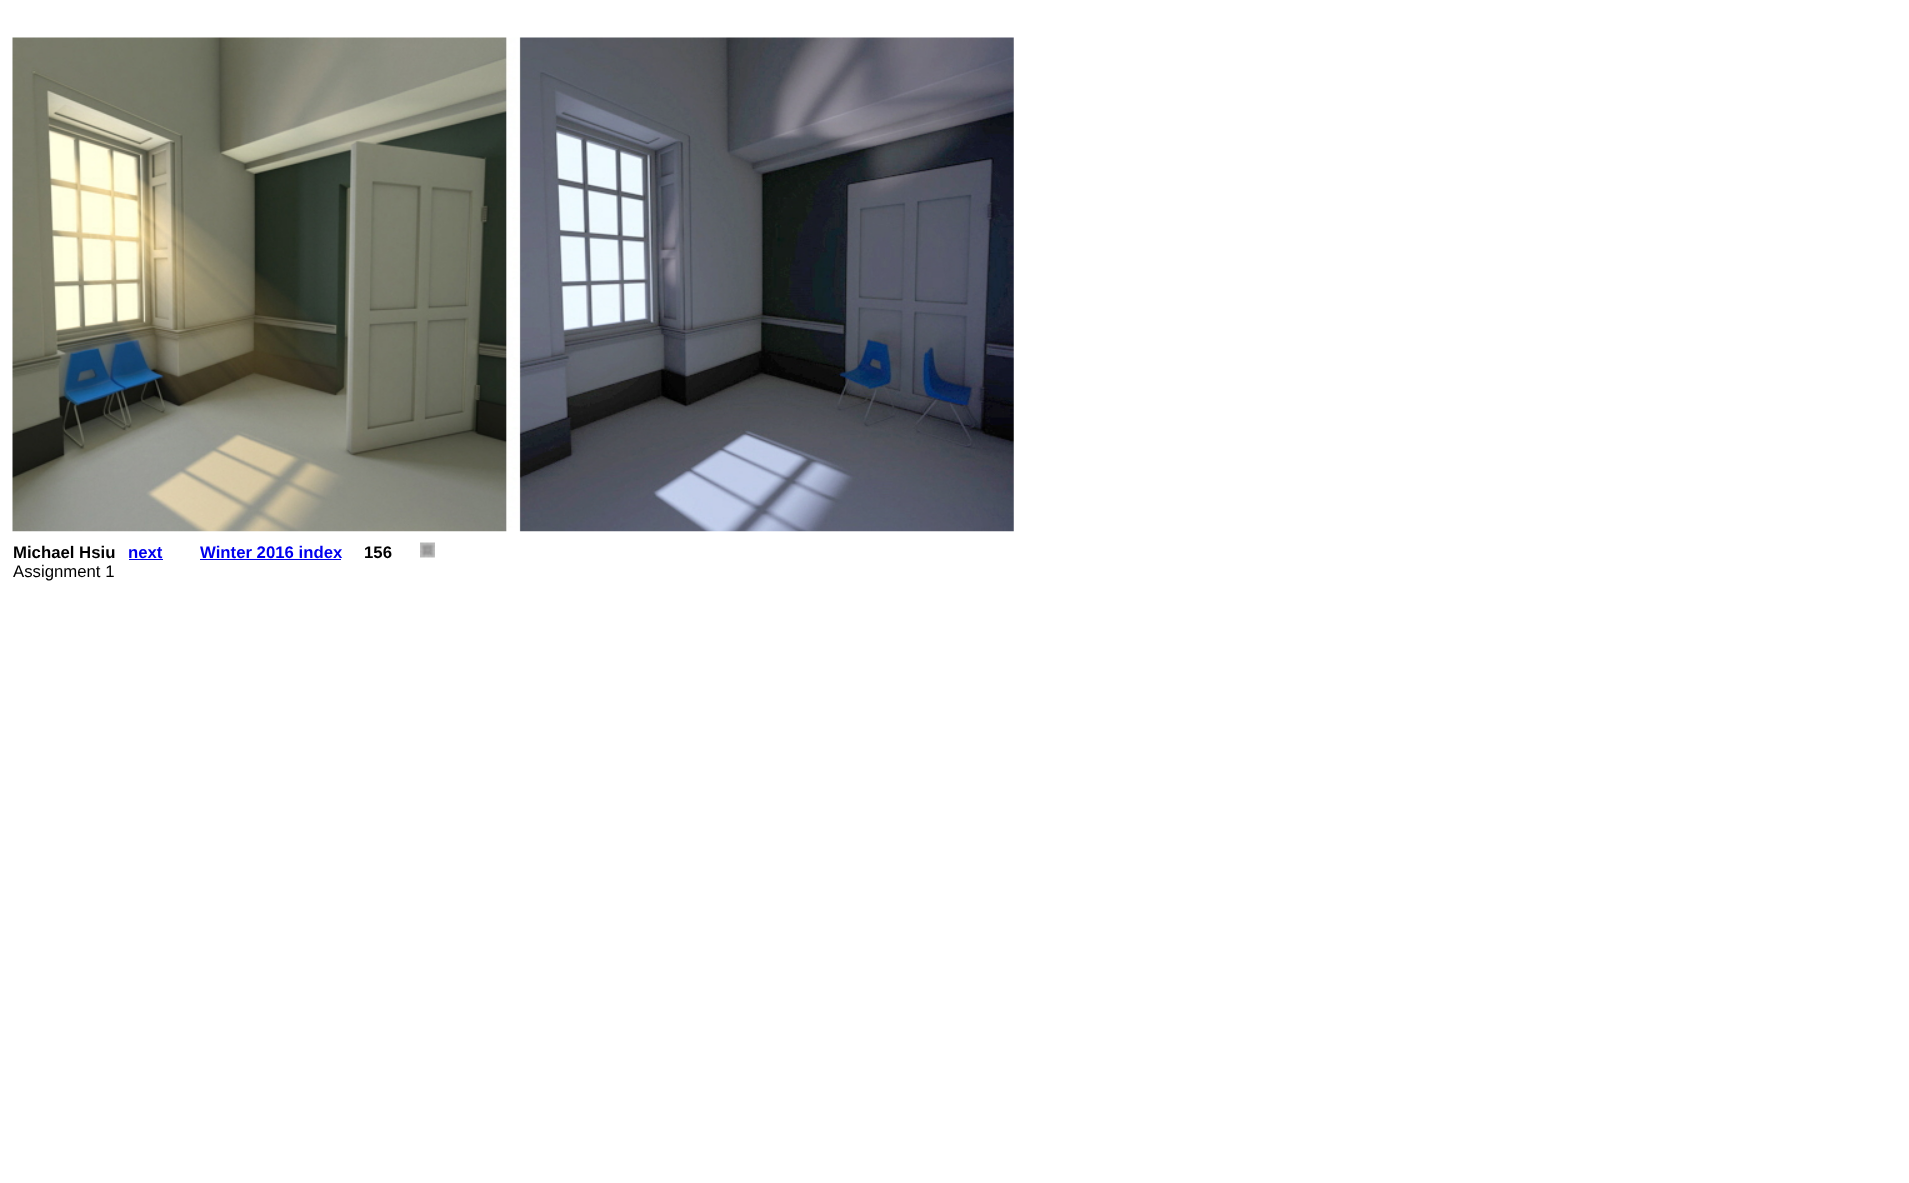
<svg xmlns="http://www.w3.org/2000/svg" width="1909" height="1183" viewBox="0 0 1909 1183">
  <rect width="100%" height="100%" fill="rgb(255,255,255)"/>
  <image x="12" y="37" width="1002" height="495" href="pic1.png"/>
  <text x="13" y="558" font-family="Liberation Sans" font-size="16.75" font-weight="bold" fill="rgb(0,0,0)">Michael Hsiu</text>
  <text x="128" y="558" font-family="Liberation Sans" font-size="16.75" font-weight="bold" fill="rgb(0,0,238)">next</text>
  <rect x="129" y="559" width="34" height="1" fill="rgb(0,0,238)"/>
  <text x="200" y="558" font-family="Liberation Sans" font-size="16.75" font-weight="bold" fill="rgb(0,0,238)">Winter 2016 index</text>
  <rect x="200" y="559" width="141" height="1" fill="rgb(0,0,238)"/>
  <text x="364" y="558" font-family="Liberation Sans" font-size="16.75" font-weight="bold" fill="rgb(0,0,0)">156</text>
  <image x="420" y="542" width="15" height="16" href="pic2.png"/>
  <text x="13" y="577" font-family="Liberation Sans" font-size="16.75" fill="rgb(0,0,0)">Assignment 1</text>
</svg>
